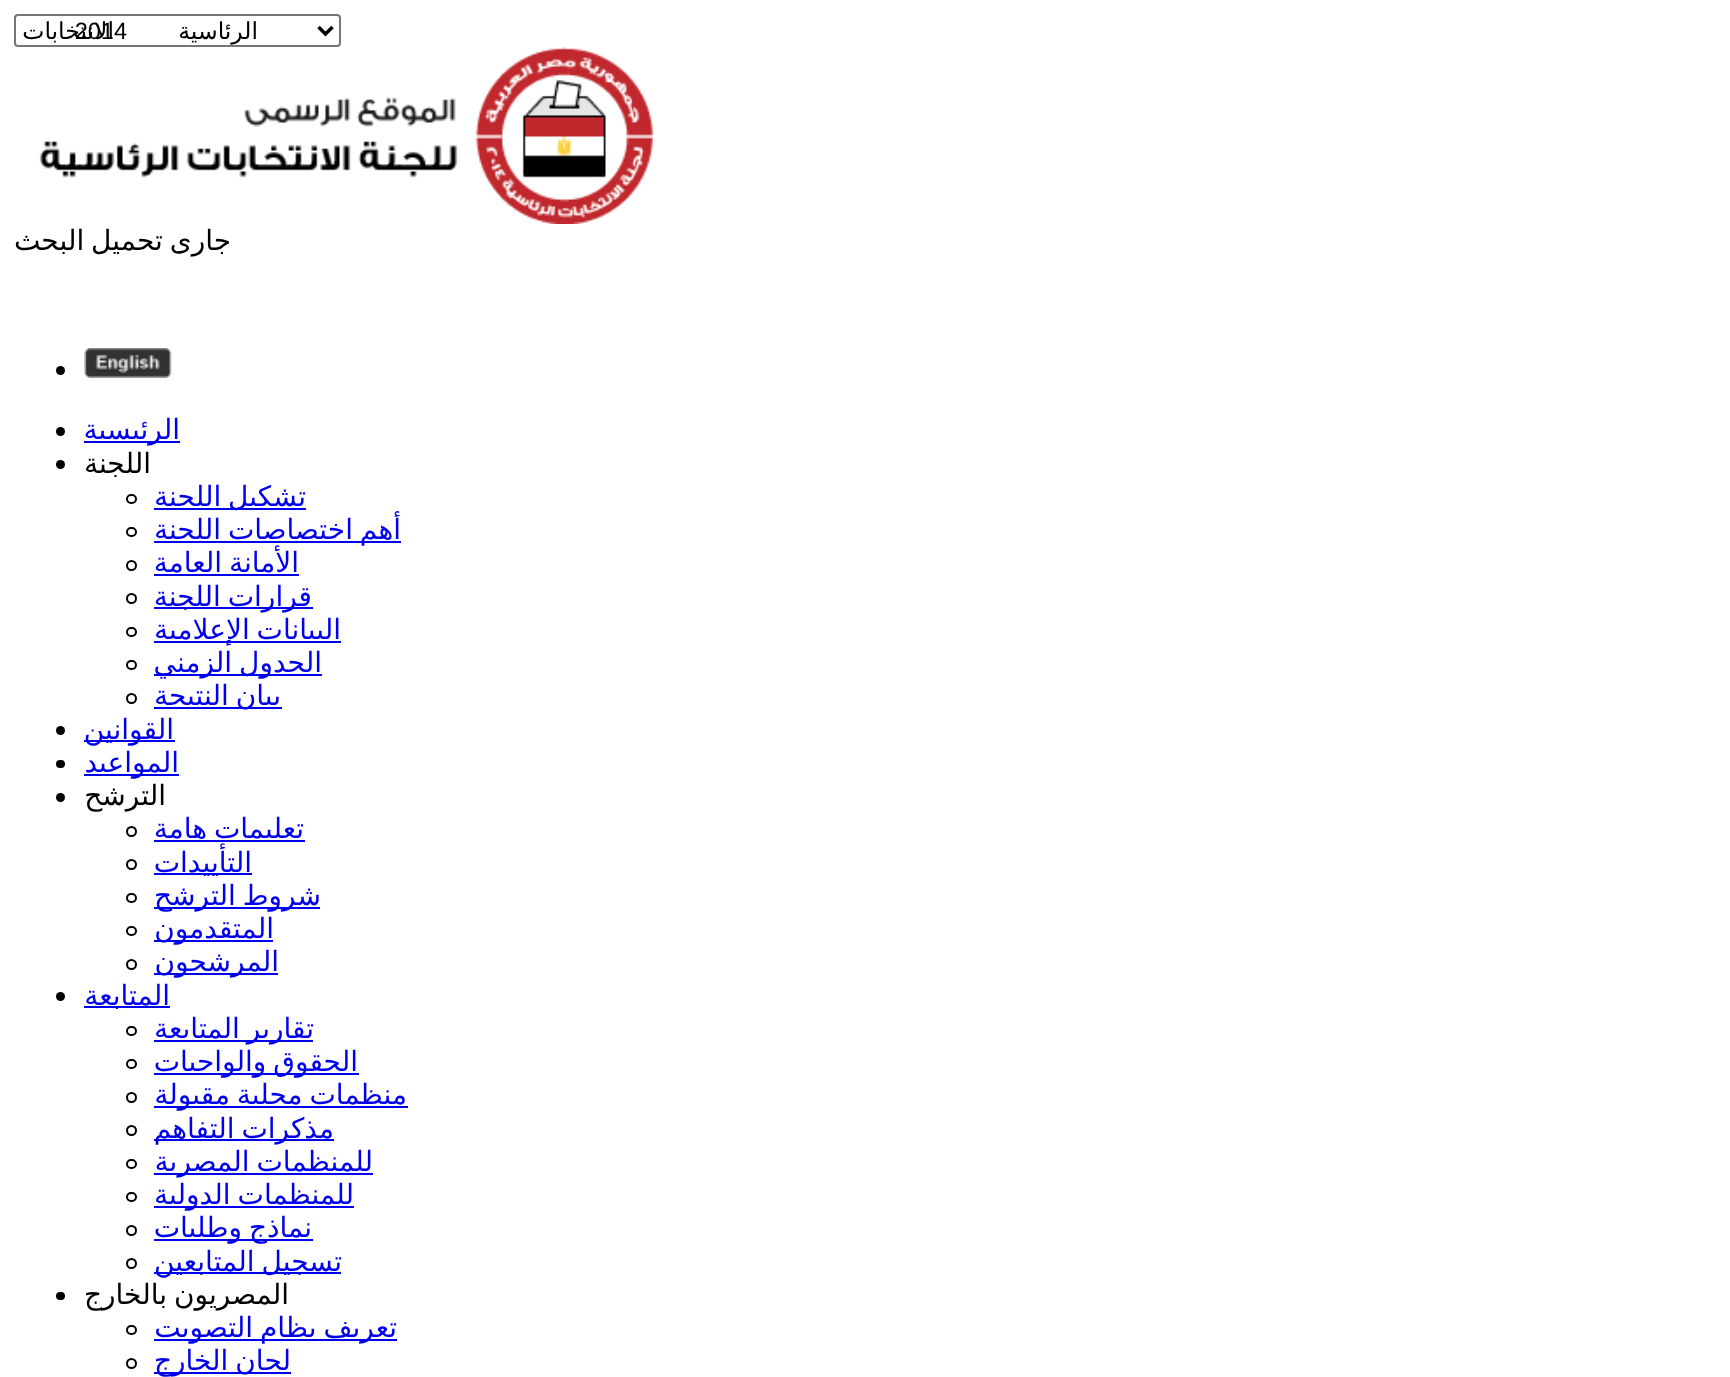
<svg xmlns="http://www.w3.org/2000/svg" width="1730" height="1377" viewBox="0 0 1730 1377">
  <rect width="100%" height="100%" fill="rgb(255,255,255)"/>
  <rect x="15" y="15" width="325" height="31" rx="3" fill="none" stroke="rgb(118,118,118)" stroke-width="2"/>
  <path d="M318.5 27L325.5 34L332.5 27" fill="none" stroke="rgb(0,0,0)" stroke-width="3.5"/>
  <g font-family="DejaVu Sans" font-size="23.5" direction="rtl" fill="rgb(0,0,0)">
    <text x="258" y="39">الرئاسية</text>
    <text x="114" y="39">الانتخابات</text>
  </g>
  <text x="127" y="39" font-family="Liberation Sans" font-size="23.5" direction="rtl" fill="rgb(0,0,0)">2014</text>
  <image x="39" y="47" width="614" height="177" href="pic1.png"/>
  <text x="231" y="250" word-spacing="-2" font-family="DejaVu Sans" font-size="28" direction="rtl" fill="rgb(0,0,0)">جارى تحميل البحث</text>
  <image x="84" y="348" width="88" height="30" href="pic2.png"/>
  <circle cx="60.5" cy="370.5" r="4.5" fill="rgb(0,0,0)"/>
  <rect x="84" y="441" width="96" height="2" fill="rgb(0,0,238)"/>
  <text x="180" y="439" font-family="DejaVu Sans" font-size="28" direction="rtl" fill="rgb(0,0,238)">الرئيسية</text>
  <circle cx="60.5" cy="431.5" r="4.5" fill="rgb(0,0,0)"/>
  <text x="151" y="473" font-family="DejaVu Sans" font-size="28" direction="rtl" fill="rgb(0,0,0)">اللجنة</text>
  <circle cx="60.5" cy="464.5" r="4.5" fill="rgb(0,0,0)"/>
  <rect x="154" y="508" width="152" height="2" fill="rgb(0,0,238)"/>
  <text x="306" y="506" word-spacing="-2" font-family="DejaVu Sans" font-size="28" direction="rtl" fill="rgb(0,0,238)">تشكيل اللجنة</text>
  <rect x="127" y="495" width="9" height="8" rx="4" fill="none" stroke="rgb(0,0,0)" stroke-width="2"/>
  <rect x="154" y="541" width="247" height="2" fill="rgb(0,0,238)"/>
  <text x="401" y="539" word-spacing="-2" font-family="DejaVu Sans" font-size="28" direction="rtl" fill="rgb(0,0,238)">أهم اختصاصات اللجنة</text>
  <rect x="127" y="528" width="9" height="8" rx="4" fill="none" stroke="rgb(0,0,0)" stroke-width="2"/>
  <text x="299" y="572" word-spacing="-2" font-family="DejaVu Sans" font-size="28" direction="rtl" fill="rgb(0,0,238)">الأمانة العامة</text>
  <rect x="154" y="574" width="145" height="2" fill="rgb(0,0,238)"/>
  <circle cx="131.5" cy="565.5" r="4.5" fill="none" stroke="rgb(0,0,0)" stroke-width="2"/>
  <rect x="154" y="607" width="159" height="2" fill="rgb(0,0,238)"/>
  <text x="312" y="606" word-spacing="-2" font-family="DejaVu Sans" font-size="28" direction="rtl" fill="rgb(0,0,238)">قرارات اللجنة</text>
  <circle cx="131.5" cy="598.5" r="4.5" fill="none" stroke="rgb(0,0,0)" stroke-width="2"/>
  <rect x="154" y="641" width="187" height="2" fill="rgb(0,0,238)"/>
  <text x="341" y="639" word-spacing="-2" font-family="DejaVu Sans" font-size="28" direction="rtl" fill="rgb(0,0,238)">البيانات الإعلامية</text>
  <rect x="127" y="628" width="9" height="8" rx="4" fill="none" stroke="rgb(0,0,0)" stroke-width="2"/>
  <rect x="154" y="674" width="168" height="2" fill="rgb(0,0,238)"/>
  <text x="322" y="672" word-spacing="-2" font-family="DejaVu Sans" font-size="28" direction="rtl" fill="rgb(0,0,238)">الجدول الزمني</text>
  <rect x="127" y="661" width="9" height="8" rx="4" fill="none" stroke="rgb(0,0,0)" stroke-width="2"/>
  <rect x="154" y="707" width="128" height="2" fill="rgb(0,0,238)"/>
  <text x="281" y="705" word-spacing="-2" font-family="DejaVu Sans" font-size="28" direction="rtl" fill="rgb(0,0,238)">بيان النتيجة</text>
  <circle cx="131.5" cy="698.5" r="4.5" fill="none" stroke="rgb(0,0,0)" stroke-width="2"/>
  <rect x="84" y="740" width="91" height="2" fill="rgb(0,0,238)"/>
  <text x="174" y="739" font-family="DejaVu Sans" font-size="28" direction="rtl" fill="rgb(0,0,238)">القوانين</text>
  <circle cx="60.5" cy="730.5" r="4.5" fill="rgb(0,0,0)"/>
  <rect x="84" y="774" width="95" height="2" fill="rgb(0,0,238)"/>
  <text x="179" y="772" font-family="DejaVu Sans" font-size="28" direction="rtl" fill="rgb(0,0,238)">المواعيد</text>
  <rect x="56" y="760" width="9" height="8" rx="4" fill="rgb(0,0,0)"/>
  <text x="166" y="805" font-family="DejaVu Sans" font-size="28" direction="rtl" fill="rgb(0,0,0)">الترشح</text>
  <circle cx="60.5" cy="797.5" r="4.5" fill="rgb(0,0,0)"/>
  <rect x="154" y="840" width="151" height="2" fill="rgb(0,0,238)"/>
  <text x="304" y="838" word-spacing="-2" font-family="DejaVu Sans" font-size="28" direction="rtl" fill="rgb(0,0,238)">تعليمات هامة</text>
  <circle cx="131.5" cy="831.5" r="4.5" fill="none" stroke="rgb(0,0,0)" stroke-width="2"/>
  <rect x="154" y="873" width="98" height="2" fill="rgb(0,0,238)"/>
  <text x="252" y="872" font-family="DejaVu Sans" font-size="28" direction="rtl" fill="rgb(0,0,238)">التأييدات</text>
  <circle cx="131.5" cy="864.5" r="4.5" fill="none" stroke="rgb(0,0,0)" stroke-width="2"/>
  <rect x="154" y="907" width="166" height="2" fill="rgb(0,0,238)"/>
  <text x="321" y="905" word-spacing="-2" font-family="DejaVu Sans" font-size="28" direction="rtl" fill="rgb(0,0,238)">شروط الترشح</text>
  <rect x="127" y="894" width="9" height="8" rx="4" fill="none" stroke="rgb(0,0,0)" stroke-width="2"/>
  <rect x="154" y="940" width="119" height="2" fill="rgb(0,0,238)"/>
  <text x="274" y="938" font-family="DejaVu Sans" font-size="28" direction="rtl" fill="rgb(0,0,238)">المتقدمون</text>
  <rect x="127" y="927" width="9" height="8" rx="4" fill="none" stroke="rgb(0,0,0)" stroke-width="2"/>
  <rect x="154" y="973" width="124" height="2" fill="rgb(0,0,238)"/>
  <text x="279" y="971" font-family="DejaVu Sans" font-size="28" direction="rtl" fill="rgb(0,0,238)">المرشحون</text>
  <circle cx="131.5" cy="964.5" r="4.5" fill="none" stroke="rgb(0,0,0)" stroke-width="2"/>
  <rect x="84" y="1006" width="86" height="2" fill="rgb(0,0,238)"/>
  <text x="170" y="1005" font-family="DejaVu Sans" font-size="28" direction="rtl" fill="rgb(0,0,238)">المتابعة</text>
  <circle cx="60.5" cy="996.5" r="4.5" fill="rgb(0,0,0)"/>
  <rect x="154" y="1040" width="159" height="2" fill="rgb(0,0,238)"/>
  <text x="314" y="1038" word-spacing="-2" font-family="DejaVu Sans" font-size="28" direction="rtl" fill="rgb(0,0,238)">تقارير المتابعة</text>
  <rect x="127" y="1027" width="9" height="8" rx="4" fill="none" stroke="rgb(0,0,0)" stroke-width="2"/>
  <rect x="154" y="1073" width="205" height="2" fill="rgb(0,0,238)"/>
  <text x="358" y="1071" word-spacing="-2" font-family="DejaVu Sans" font-size="28" direction="rtl" fill="rgb(0,0,238)">الحقوق والواجبات</text>
  <rect x="127" y="1060" width="9" height="8" rx="4" fill="none" stroke="rgb(0,0,0)" stroke-width="2"/>
  <rect x="154" y="1106" width="254" height="2" fill="rgb(0,0,238)"/>
  <text x="407" y="1104" word-spacing="-2" font-family="DejaVu Sans" font-size="28" direction="rtl" fill="rgb(0,0,238)">منظمات محلية مقبولة</text>
  <circle cx="131.5" cy="1097.5" r="4.5" fill="none" stroke="rgb(0,0,0)" stroke-width="2"/>
  <rect x="154" y="1139" width="180" height="2" fill="rgb(0,0,238)"/>
  <text x="334" y="1138" word-spacing="-2" font-family="DejaVu Sans" font-size="28" direction="rtl" fill="rgb(0,0,238)">مذكرات التفاهم</text>
  <circle cx="131.5" cy="1130.5" r="4.5" fill="none" stroke="rgb(0,0,0)" stroke-width="2"/>
  <rect x="154" y="1173" width="219" height="2" fill="rgb(0,0,238)"/>
  <text x="373" y="1171" word-spacing="-2" font-family="DejaVu Sans" font-size="28" direction="rtl" fill="rgb(0,0,238)">للمنظمات المصرية</text>
  <rect x="127" y="1160" width="9" height="8" rx="4" fill="none" stroke="rgb(0,0,0)" stroke-width="2"/>
  <rect x="154" y="1206" width="200" height="2" fill="rgb(0,0,238)"/>
  <text x="354" y="1204" word-spacing="-2" font-family="DejaVu Sans" font-size="28" direction="rtl" fill="rgb(0,0,238)">للمنظمات الدولية</text>
  <rect x="127" y="1193" width="9" height="8" rx="4" fill="none" stroke="rgb(0,0,0)" stroke-width="2"/>
  <rect x="154" y="1239" width="159" height="2" fill="rgb(0,0,238)"/>
  <text x="312" y="1237" word-spacing="-2" font-family="DejaVu Sans" font-size="28" direction="rtl" fill="rgb(0,0,238)">نماذج وطلبات</text>
  <circle cx="131.5" cy="1230.5" r="4.5" fill="none" stroke="rgb(0,0,0)" stroke-width="2"/>
  <rect x="154" y="1272" width="187" height="2" fill="rgb(0,0,238)"/>
  <text x="342" y="1271" word-spacing="-2" font-family="DejaVu Sans" font-size="28" direction="rtl" fill="rgb(0,0,238)">تسجيل المتابعين</text>
  <circle cx="131.5" cy="1263.5" r="4.5" fill="none" stroke="rgb(0,0,0)" stroke-width="2"/>
  <text x="289" y="1304" word-spacing="-2" font-family="DejaVu Sans" font-size="28" direction="rtl" fill="rgb(0,0,0)">المصريون بالخارج</text>
  <rect x="56" y="1292" width="9" height="8" rx="4" fill="rgb(0,0,0)"/>
  <rect x="154" y="1339" width="243" height="2" fill="rgb(0,0,238)"/>
  <text x="397" y="1337" word-spacing="-2" font-family="DejaVu Sans" font-size="28" direction="rtl" fill="rgb(0,0,238)">تعريف بظام التصويت</text>
  <rect x="127" y="1326" width="9" height="8" rx="4" fill="none" stroke="rgb(0,0,0)" stroke-width="2"/>
  <rect x="154" y="1372" width="137" height="2" fill="rgb(0,0,238)"/>
  <text x="291" y="1370" word-spacing="-2" font-family="DejaVu Sans" font-size="28" direction="rtl" fill="rgb(0,0,238)">لجان الخارج</text>
  <circle cx="131.5" cy="1363.5" r="4.5" fill="none" stroke="rgb(0,0,0)" stroke-width="2"/>
</svg>
